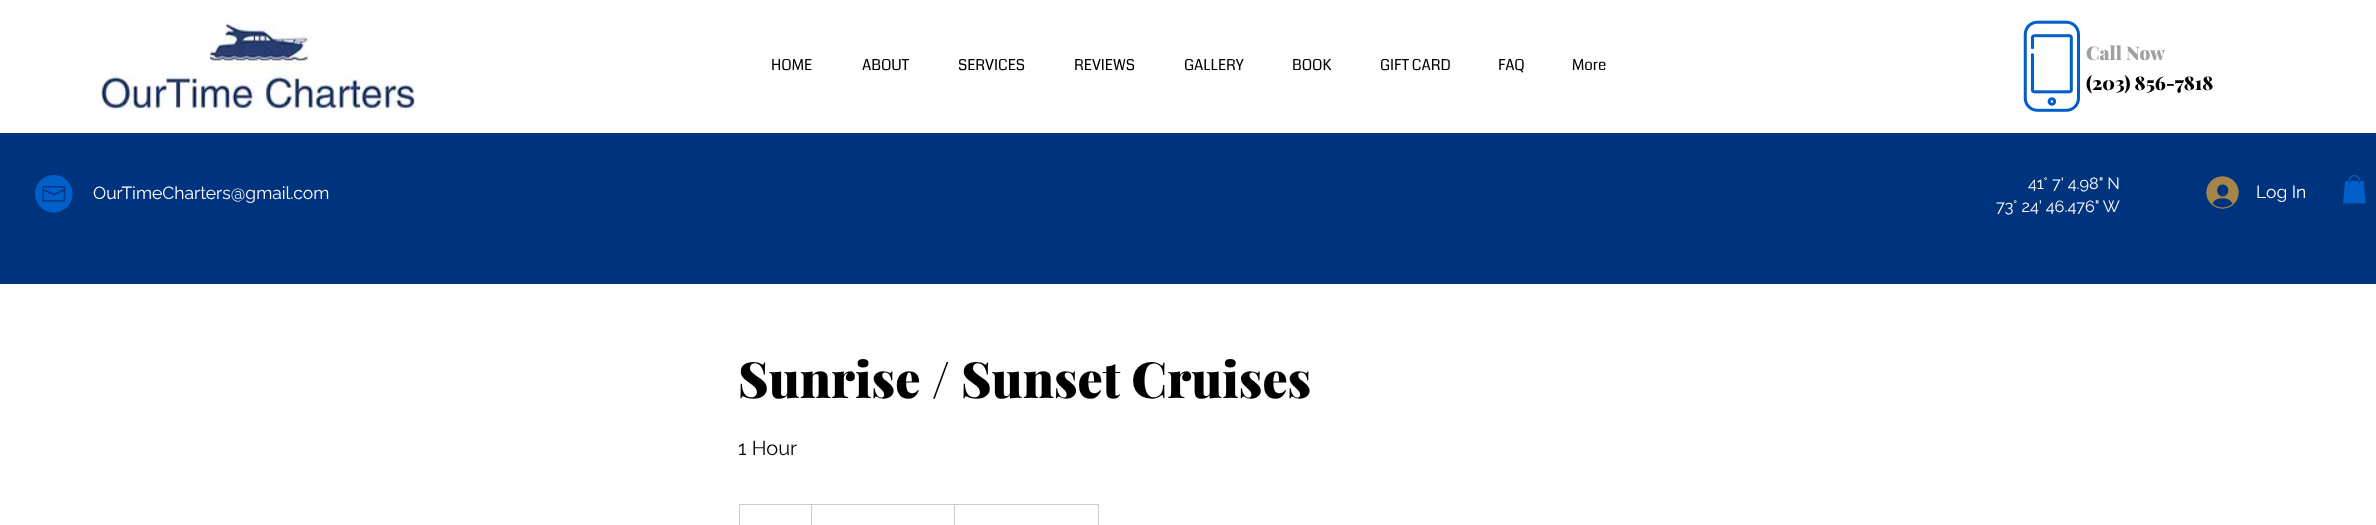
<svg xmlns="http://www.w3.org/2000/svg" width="2376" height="525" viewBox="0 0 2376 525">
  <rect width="100%" height="100%" fill="rgb(255,255,255)"/>
  <image x="95" y="22" width="321" height="88" href="pic1.png"/>
  <g font-family="Coda" font-size="15" fill="rgb(0,0,0)">
    <text x="771" y="70">HOME</text>
    <text x="862" y="70">ABOUT</text>
    <text x="958" y="70">SERVICES</text>
    <text x="1074" y="70">REVIEWS</text>
    <text x="1184" y="70">GALLERY</text>
    <text x="1292" y="70">BOOK</text>
    <text x="1380" y="70">GIFT CARD</text>
    <text x="1498" y="70">FAQ</text>
    <text x="1572" y="70">More</text>
  </g>
  <image x="2023" y="20" width="57" height="92" href="pic2.png"/>
  <text x="2086" y="60" font-family="Playfair Display" font-size="18.75" font-weight="900" fill="rgb(160,160,160)">Call Now</text>
  <text x="2086" y="90" font-family="Playfair Display" font-size="18.75" font-weight="900" fill="rgb(0,0,0)">(203) 856-7818</text>
  <rect x="0" y="133" width="2376" height="151" fill="rgb(0,51,125)"/>
  <image x="35" y="175" width="38" height="38" href="pic3.png"/>
  <text x="93" y="199" font-family="Raleway" font-size="17.5" fill="rgb(255,255,255)">OurTimeCharters@gmail.com</text>
  <g font-family="Raleway" font-size="16.25" fill="rgb(255,255,255)">
    <text x="2028" y="189">41° 7' 4.98" N</text>
    <text x="1996" y="212">73° 24' 46.476" W</text>
  </g>
  <image x="2206" y="176" width="33" height="33" href="pic4.png"/>
  <text x="2256" y="198" font-family="Raleway" font-size="17.5" fill="rgb(255,255,255)">Log In</text>
  <image x="2343" y="175" width="23" height="29" href="pic5.png"/>
  <text x="738" y="398" font-family="Playfair Display" font-size="50" font-weight="900" fill="rgb(0,0,0)">Sunrise / Sunset Cruises</text>
  <text x="738" y="455" font-family="Raleway" font-size="20" fill="rgb(0,0,0)">1 Hour</text>
  <rect x="739.5" y="504.5" width="359" height="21" fill="none" stroke="rgb(204,204,204)"/>
  <path d="M811 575V504L812 505V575Z" fill="rgb(204,204,204)"/>
  <path d="M954 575V504L955 505V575Z" fill="rgb(204,204,204)"/>
</svg>
